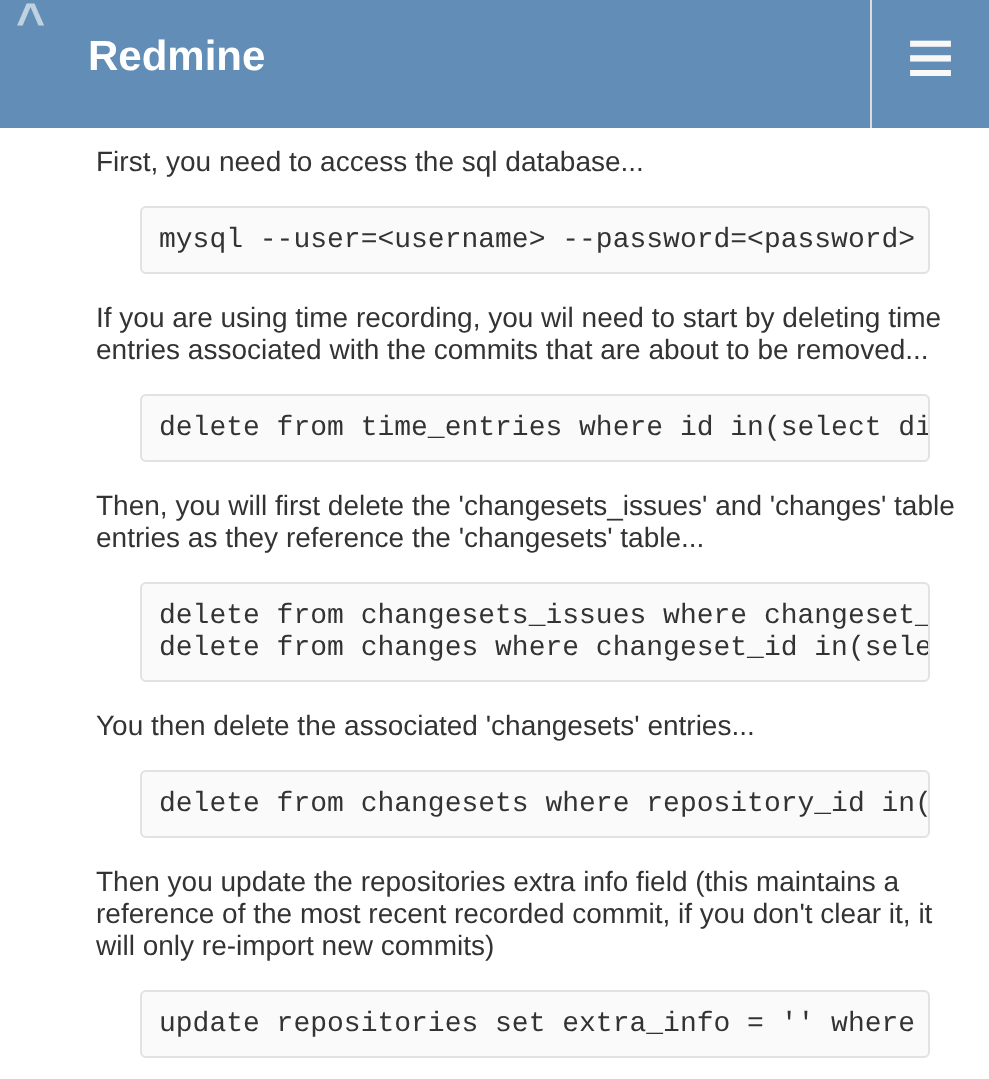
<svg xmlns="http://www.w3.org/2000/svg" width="989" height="1079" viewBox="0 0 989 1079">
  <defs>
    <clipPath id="clip1"><rect x="142" y="396" width="786" height="64" rx="4"/></clipPath>
    <clipPath id="clip2"><rect x="142" y="584" width="786" height="96" rx="4"/></clipPath>
  </defs>
  <rect width="100%" height="100%" fill="rgb(255,255,255)"/>
  <rect x="0" y="0" width="989" height="128" fill="rgb(98,141,182)"/>
  <text x="16" y="38" font-family="Liberation Sans" font-size="50" font-weight="bold" letter-spacing="7" fill="rgb(192,209,226)">^</text>
  <text x="88" y="70" font-family="Liberation Sans" font-size="42" font-weight="bold" fill="rgb(255,255,255)">Redmine</text>
  <rect x="870" y="0" width="2" height="128" fill="rgb(221,221,221)"/>
  <text x="906" y="86" font-family="Liberation Sans" font-size="84" fill="rgb(248,248,248)">≡</text>
  <text x="96" y="171" font-family="Liberation Sans" font-size="28" fill="rgb(51,51,51)">First, you need to access the sql database...</text>
  <rect x="141" y="207" width="788" height="66" rx="5" fill="rgb(250,250,250)" stroke="rgb(226,226,226)" stroke-width="2"/>
  <text x="159" y="247" font-family="Liberation Mono" font-size="28" fill="rgb(51,51,51)">mysql --user=&lt;username&gt; --password=&lt;password&gt;</text>
  <g font-family="Liberation Sans" font-size="28" fill="rgb(51,51,51)">
    <text>
      <tspan x="96" y="327">If you are using time recording, you wil need to start by deleting time</tspan>
      <tspan x="96" y="359">entries associated with the commits that are about to be removed...</tspan>
    </text>
  </g>
  <rect x="141" y="395" width="788" height="66" rx="5" fill="rgb(250,250,250)" stroke="rgb(226,226,226)" stroke-width="2"/>
  <g clip-path="url(#clip1)">
    <text x="159" y="435" font-family="Liberation Mono" font-size="28" fill="rgb(51,51,51)">delete from time_entries where id in(select di</text>
  </g>
  <g font-family="Liberation Sans" font-size="28" fill="rgb(51,51,51)">
    <text>
      <tspan x="96" y="515">Then, you will first delete the 'changesets_issues' and 'changes' table</tspan>
      <tspan x="96" y="547">entries as they reference the 'changesets' table...</tspan>
    </text>
  </g>
  <rect x="141" y="583" width="788" height="98" rx="5" fill="rgb(250,250,250)" stroke="rgb(226,226,226)" stroke-width="2"/>
  <g clip-path="url(#clip2)">
    <g font-family="Liberation Mono" font-size="28" fill="rgb(51,51,51)">
      <text>
        <tspan x="159" y="623">delete from changesets_issues where changeset_</tspan>
        <tspan x="159" y="655">delete from changes where changeset_id in(sele</tspan>
      </text>
    </g>
  </g>
  <text x="96" y="735" font-family="Liberation Sans" font-size="28" fill="rgb(51,51,51)">You then delete the associated 'changesets' entries...</text>
  <rect x="141" y="771" width="788" height="66" rx="5" fill="rgb(250,250,250)" stroke="rgb(226,226,226)" stroke-width="2"/>
  <text x="159" y="811" font-family="Liberation Mono" font-size="28" fill="rgb(51,51,51)">delete from changesets where repository_id in(</text>
  <g font-family="Liberation Sans" font-size="28" fill="rgb(51,51,51)">
    <text>
      <tspan x="96" y="891">Then you update the repositories extra info field (this maintains a</tspan>
      <tspan x="96" y="923">reference of the most recent recorded commit, if you don't clear it, it</tspan>
      <tspan x="96" y="955">will only re-import new commits)</tspan>
    </text>
  </g>
  <rect x="141" y="991" width="788" height="66" rx="5" fill="rgb(250,250,250)" stroke="rgb(226,226,226)" stroke-width="2"/>
  <text x="159" y="1031" font-family="Liberation Mono" font-size="28" fill="rgb(51,51,51)">update repositories set extra_info = '' where</text>
</svg>
